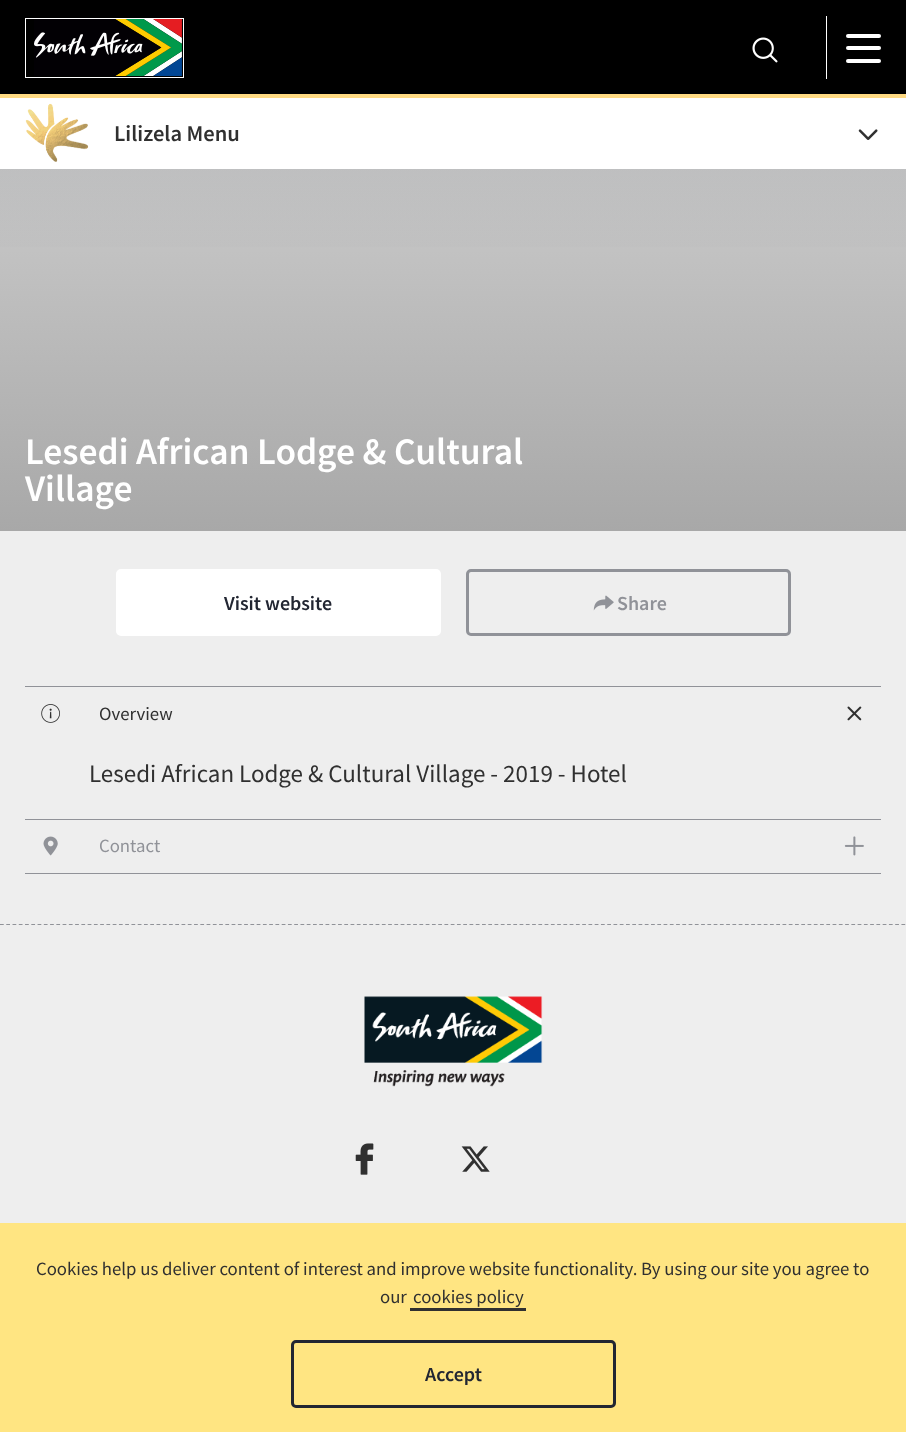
<svg xmlns="http://www.w3.org/2000/svg" width="906" height="1432" viewBox="0 0 906 1432">
  <defs>
    <linearGradient id="g1" gradientUnits="userSpaceOnUse" x1="453" y1="-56" x2="453" y2="531"><stop offset="0" stop-color="rgb(239,239,239)"/><stop offset="0.1" stop-color="rgb(239,239,239)"/><stop offset="0.3" stop-color="rgb(206,206,206)"/><stop offset="1" stop-color="rgb(168,168,168)"/></linearGradient>
    <linearGradient id="g2" gradientUnits="userSpaceOnUse" x1="453" y1="-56" x2="453" y2="268"><stop offset="0" stop-color="rgb(157,159,163)" stop-opacity="0.8"/><stop offset="1" stop-color="rgb(157,159,163)" stop-opacity="0"/></linearGradient>
  </defs>
  <rect width="100%" height="100%" fill="rgb(238,238,238)"/>
  <rect x="0" y="0" width="906" height="94" fill="rgb(0,0,0)"/>
  <rect x="25.5" y="18.5" width="158" height="59" fill="none" stroke="rgb(255,255,255)"/>
  <image x="34" y="19" width="148" height="57" href="pic1.png"/>
  <image x="752" y="37" width="26" height="26" href="pic2.png"/>
  <rect x="826" y="16" width="1" height="63" fill="rgb(255,255,255)"/>
  <rect x="846" y="34" width="35" height="4" rx="2" fill="rgb(255,255,255)"/>
  <rect x="846" y="46" width="35" height="4" rx="2" fill="rgb(255,255,255)"/>
  <rect x="846" y="59" width="35" height="4" rx="2" fill="rgb(255,255,255)"/>
  <rect x="0" y="98" width="906" height="71" fill="rgb(255,255,255)"/>
  <rect x="0" y="94" width="906" height="4" fill="rgb(255,218,130)"/>
  <image x="25" y="103" width="64" height="59" href="pic3.png"/>
  <text x="114" y="141" font-family="Source Sans Pro" font-size="22.5" font-weight="600" fill="rgb(48,48,48)">Lilizela Menu</text>
  <image x="858" y="129" width="20" height="11" href="pic4.png"/>
  <rect x="0" y="169" width="906" height="362" fill="url(#g1)"/>
  <rect x="0" y="169" width="906" height="78" fill="url(#g2)"/>
  <g font-family="Source Sans Pro" font-size="37.5" font-weight="600" fill="rgb(255,255,255)">
    <text>
      <tspan x="25" y="464">Lesedi African Lodge &amp; Cultural</tspan>
      <tspan x="25" y="501">Village</tspan>
    </text>
  </g>
  <rect x="117.5" y="570.5" width="322" height="64" rx="3.5" fill="none" stroke="rgb(255,255,255)" stroke-width="3"/>
  <rect x="119" y="572" width="319" height="61" fill="rgb(255,255,255)"/>
  <text x="224" y="610" font-family="Source Sans Pro" font-size="20" font-weight="600" fill="rgb(34,38,50)">Visit website</text>
  <rect x="467.5" y="570.5" width="322" height="64" rx="3.5" fill="none" stroke="rgb(144,146,152)" stroke-width="3"/>
  <image x="593" y="595" width="21" height="16" href="pic5.png"/>
  <text x="617" y="610" font-family="Source Sans Pro" font-size="20" font-weight="600" fill="rgb(144,146,152)">Share</text>
  <rect x="25" y="686" width="856" height="1" fill="rgb(144,146,152)"/>
  <image x="41" y="704" width="19" height="19" href="pic6.png"/>
  <text x="99" y="720" font-family="Source Sans Pro" font-size="18.75" fill="rgb(48,48,48)">Overview</text>
  <image x="847" y="706" width="15" height="15" href="pic7.png"/>
  <rect x="25" y="819" width="856" height="1" fill="rgb(144,146,152)"/>
  <text x="89" y="782" font-family="Source Sans Pro" font-size="25" fill="rgb(48,48,48)">Lesedi African Lodge &amp; Cultural Village - 2019 - Hotel</text>
  <rect x="25" y="873" width="856" height="1" fill="rgb(144,146,152)"/>
  <image x="43" y="836" width="15" height="20" href="pic8.png"/>
  <text x="99" y="852" font-family="Source Sans Pro" font-size="18.75" fill="rgb(144,146,152)">Contact</text>
  <image x="844" y="836" width="20" height="20" href="pic9.png"/>
  <path d="M0 924.5H906" fill="none" stroke="rgb(144,146,152)" stroke-width="1.2" stroke-dasharray="3.75 2.51"/>
  <image x="364" y="996" width="179" height="91" href="pic10.png"/>
  <image x="355" y="1143" width="19" height="32" href="pic11.png"/>
  <image x="461" y="1146" width="29" height="26" href="pic12.png"/>
  <rect x="0" y="1223" width="906" height="209" fill="rgb(255,229,130)"/>
  <g font-family="Source Sans Pro" font-size="18.75" fill="rgb(48,48,48)">
    <text x="36" y="1275">Cookies help us deliver content of interest and improve website functionality. By using our site you agree to</text>
    <text x="380" y="1303">our</text>
    <text x="413" y="1303">cookies policy</text>
  </g>
  <rect x="410" y="1308" width="116" height="3" fill="rgb(48,48,48)"/>
  <rect x="292.5" y="1341.5" width="322" height="65" rx="3.5" fill="none" stroke="rgb(34,38,50)" stroke-width="3"/>
  <text x="425" y="1381" font-family="Source Sans Pro" font-size="20" font-weight="600" fill="rgb(34,38,50)">Accept</text>
</svg>
